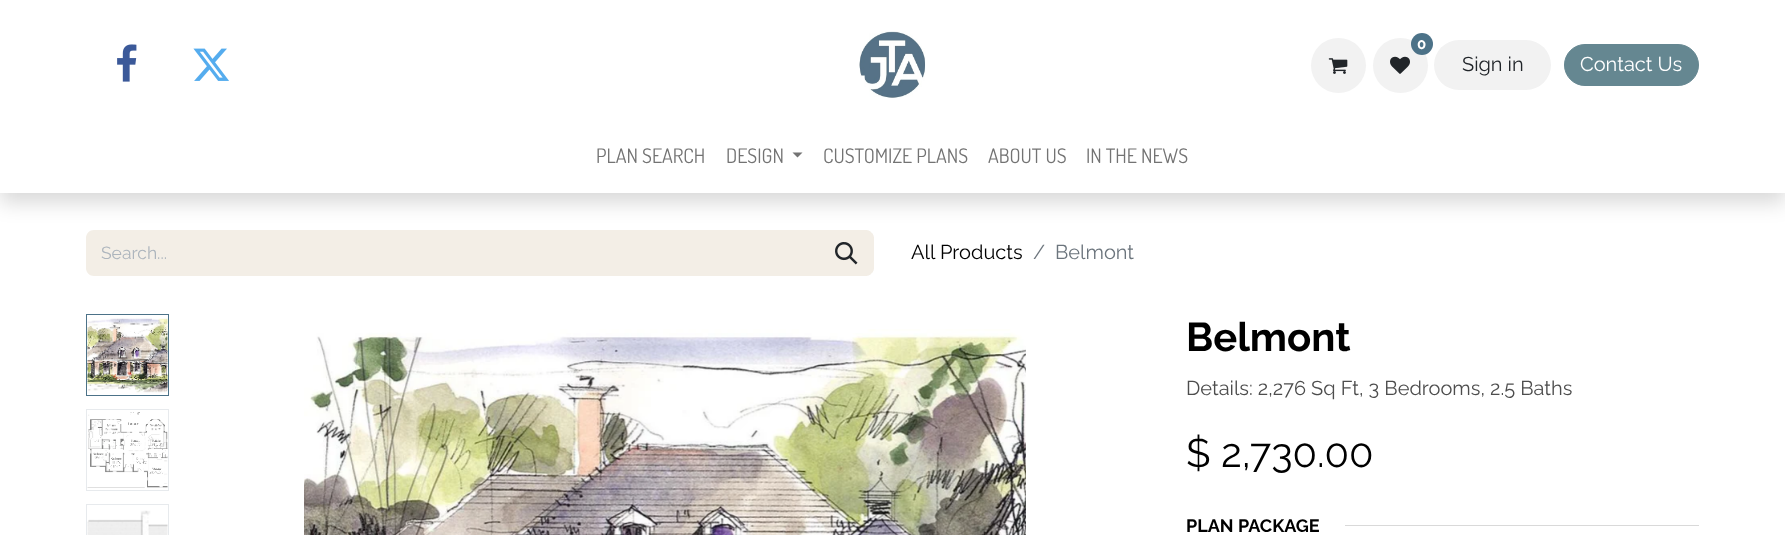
<svg xmlns="http://www.w3.org/2000/svg" width="1785" height="535" viewBox="0 0 1785 535">
  <rect width="100%" height="100%" fill="rgb(255,255,255)"/>
  <path d="M94 230H820V276H94C89.5 276 86 272.5 86 268V238C86 233.5 89.5 230 94 230Z" fill="rgb(243,238,230)"/>
  <path d="M819.5 230.5H866C870 230.5 873.5 234 873.5 238V268C873.5 272 870 275.5 866 275.5H819.5Z" fill="rgb(243,238,230)" stroke="rgb(243,238,230)"/>
  <rect x="0" y="10" width="1785" height="193" fill="rgba(0,0,0,0.15)" filter="blur(10px)"/>
  <rect x="0" y="0" width="1785" height="193" fill="rgb(255,255,255)"/>
  <image x="117" y="44" width="20" height="38" href="pic1.png"/>
  <image x="193" y="48" width="36" height="33" href="pic2.png"/>
  <image x="859" y="31" width="67" height="67" href="pic3.png"/>
  <circle cx="1338.5" cy="65.5" r="27.5" fill="rgb(242,242,242)"/>
  <image x="1328" y="58" width="20" height="16" href="pic4.png"/>
  <circle cx="1400.5" cy="65.5" r="27.5" fill="rgb(242,242,242)"/>
  <circle cx="1422" cy="44" r="11" fill="rgb(76,114,136)"/>
  <text x="1417" y="49" font-family="Raleway" font-size="15" font-weight="bold" fill="rgb(255,255,255)">0</text>
  <image x="1390" y="56" width="20" height="18" href="pic5.png"/>
  <rect x="1434" y="40" width="117" height="50" rx="25" fill="rgb(242,242,242)"/>
  <text x="1462" y="71" font-family="Raleway" font-size="20" fill="rgb(33,37,41)">Sign in</text>
  <rect x="1564.5" y="44.5" width="134" height="41" rx="20.5" fill="rgb(101,135,145)" stroke="rgb(101,135,145)"/>
  <text x="1580" y="71" font-family="Raleway" font-size="20" fill="rgb(255,255,255)">Contact Us</text>
  <g font-family="Dosis" font-size="20" fill="rgb(115,115,115)">
    <text x="596" y="163">PLAN SEARCH</text>
    <text x="726" y="163">DESIGN</text>
  </g>
  <path d="M792.5 152.5H802.5L797.5 157.5Z" fill="rgb(115,115,115)"/>
  <g font-family="Dosis" font-size="20" fill="rgb(115,115,115)">
    <text x="823" y="163">CUSTOMIZE PLANS</text>
    <text x="988" y="163">ABOUT US</text>
    <text x="1086" y="163">IN THE NEWS</text>
  </g>
  <text x="101" y="259" font-family="Raleway" font-size="17.5" fill="rgb(173,181,189)">Search...</text>
  <image x="835" y="242" width="23" height="23" href="pic6.png"/>
  <text x="911" y="259" font-family="Raleway" font-size="20" fill="rgb(0,0,0)">All Products</text>
  <g font-family="Raleway" font-size="20" fill="rgb(108,117,125)">
    <text x="1033" y="259">/</text>
    <text x="1055" y="259">Belmont</text>
  </g>
  <rect x="86.5" y="314.5" width="82" height="81" fill="none" stroke="rgb(76,114,136)"/>
  <image x="87" y="318" width="81" height="75" href="pic7.png"/>
  <rect x="86.5" y="409.5" width="82" height="81" fill="none" stroke="rgb(231,234,237)"/>
  <image x="87" y="412" width="81" height="76" href="pic8.png"/>
  <rect x="86.5" y="504.5" width="82" height="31" fill="none" stroke="rgb(231,234,237)"/>
  <image x="87" y="510" width="81" height="25" href="pic9.png"/>
  <image x="304" y="329" width="722" height="206" href="pic10.png"/>
  <text x="1186" y="351" font-family="Raleway" font-size="40" font-weight="bold" fill="rgb(0,0,0)">Belmont</text>
  <text x="1186" y="395" font-family="Raleway" font-size="20" fill="rgb(77,77,77)">Details: 2,276 Sq Ft, 3 Bedrooms, 2.5 Baths</text>
  <text x="1186" y="467" font-family="Raleway" font-size="40" fill="rgb(0,0,0)">$ 2,730.00</text>
  <text x="1186" y="532" font-family="Raleway" font-size="18" font-weight="bold" fill="rgb(0,0,0)">PLAN PACKAGE</text>
  <rect x="1345" y="525" width="354" height="1" fill="rgb(217,217,217)"/>
</svg>
